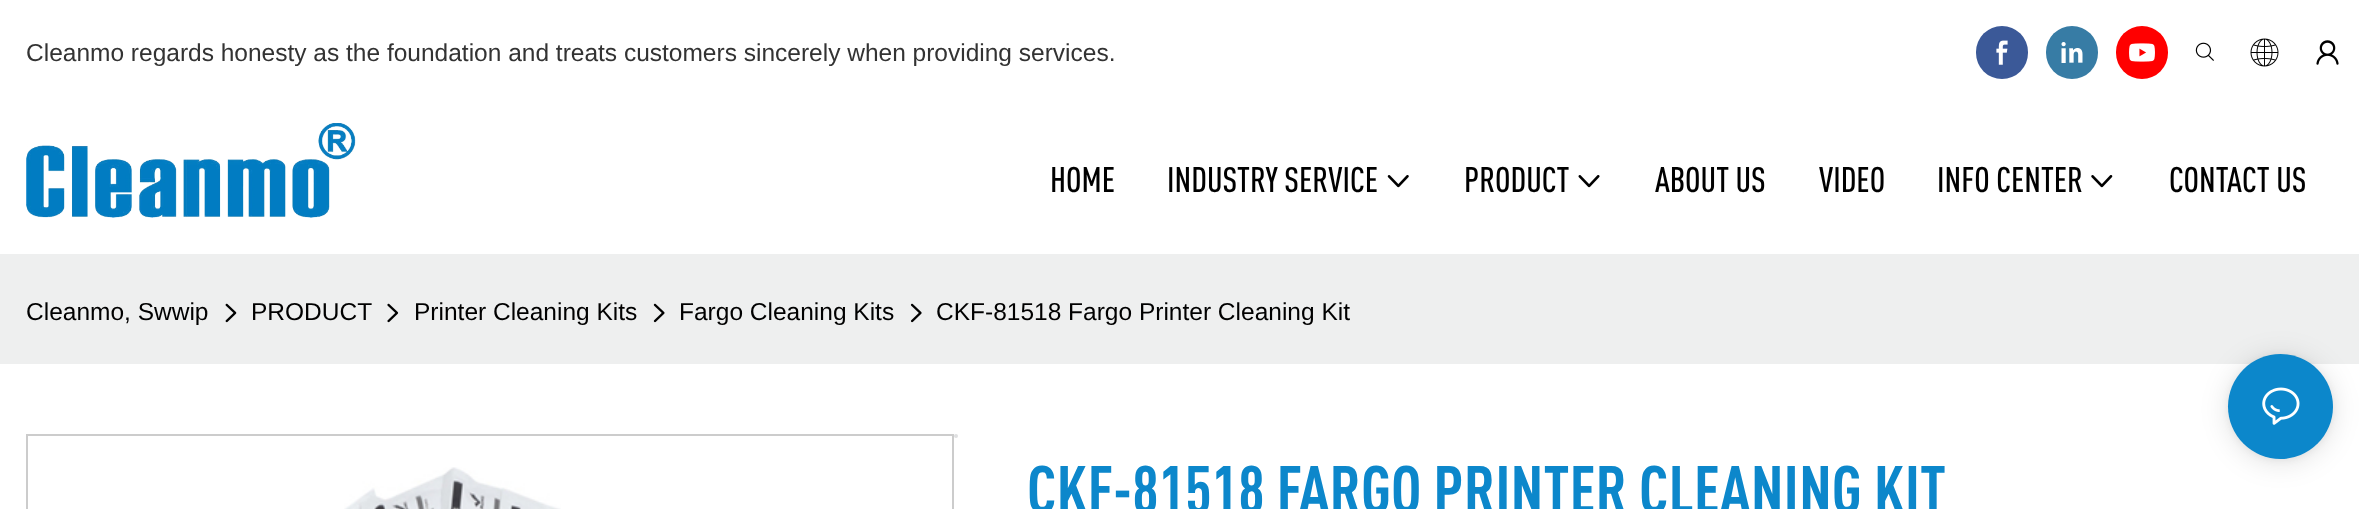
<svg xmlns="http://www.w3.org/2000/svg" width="2359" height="509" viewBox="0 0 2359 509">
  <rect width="100%" height="100%" fill="rgb(255,255,255)"/>
  <text x="26" y="61" font-family="Liberation Sans" font-size="24.5" fill="rgb(51,51,51)">Cleanmo regards honesty as the foundation and treats customers sincerely when providing services.</text>
  <rect x="1976" y="26" width="52" height="53" rx="26" fill="rgb(59,89,152)"/>
  <image x="1996" y="40" width="12" height="25" href="pic1.png"/>
  <rect x="2046" y="26" width="52" height="53" rx="26" fill="rgb(55,124,165)"/>
  <image x="2061" y="42" width="22" height="21" href="pic2.png"/>
  <rect x="2116" y="26" width="52" height="53" rx="26" fill="rgb(255,0,0)"/>
  <image x="2129" y="43" width="26" height="19" href="pic3.png"/>
  <image x="2195" y="42" width="19" height="19" href="pic4.png"/>
  <image x="2250" y="38" width="29" height="29" href="pic5.png"/>
  <image x="2316" y="40" width="23" height="25" href="pic6.png"/>
  <image x="26" y="123" width="330" height="95" href="pic7.png"/>
  <g font-family="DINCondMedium" font-size="35" font-weight="500" fill="rgb(0,0,0)">
    <text x="1050" y="192">HOME</text>
    <text x="1167" y="192">INDUSTRY SERVICE</text>
  </g>
  <image x="1387" y="175" width="22" height="13" href="pic8.png"/>
  <text x="1464" y="192" font-family="DINCondMedium" font-size="35" font-weight="500" fill="rgb(0,0,0)">PRODUCT</text>
  <image x="1578" y="175" width="22" height="13" href="pic9.png"/>
  <g font-family="DINCondMedium" font-size="35" font-weight="500" fill="rgb(0,0,0)">
    <text x="1655" y="192">ABOUT US</text>
    <text x="1819" y="192">VIDEO</text>
    <text x="1937" y="192">INFO CENTER</text>
  </g>
  <image x="2091" y="175" width="22" height="13" href="pic10.png"/>
  <text x="2169" y="192" font-family="DINCondMedium" font-size="35" font-weight="500" fill="rgb(0,0,0)">CONTACT US</text>
  <rect x="0" y="254" width="2359" height="110" fill="rgb(238,239,239)"/>
  <text x="26" y="320" font-family="Liberation Sans" font-size="24.5" fill="rgb(0,0,0)">Cleanmo, Swwip</text>
  <image x="225" y="303" width="12" height="20" href="pic11.png"/>
  <text x="251" y="320" font-family="Liberation Sans" font-size="24.5" fill="rgb(0,0,0)">PRODUCT</text>
  <image x="387" y="303" width="12" height="20" href="pic12.png"/>
  <text x="414" y="320" font-family="Liberation Sans" font-size="24.5" fill="rgb(0,0,0)">Printer Cleaning Kits</text>
  <image x="653" y="303" width="12" height="20" href="pic13.png"/>
  <text x="679" y="320" font-family="Liberation Sans" font-size="24.5" fill="rgb(0,0,0)">Fargo Cleaning Kits</text>
  <image x="910" y="303" width="12" height="20" href="pic14.png"/>
  <text x="936" y="320" font-family="Liberation Sans" font-size="24.5" fill="rgb(0,0,0)">CKF-81518 Fargo Printer Cleaning Kit</text>
  <rect x="27" y="435" width="926" height="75" fill="none" stroke="rgb(204,204,204)" stroke-width="2"/>
  <image x="344" y="467" width="217" height="42" href="pic15.png"/>
  <circle cx="956" cy="436" r="2" fill="rgb(223,224,225)"/>
  <text x="1027" y="513" font-family="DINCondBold" font-size="66" font-weight="bold" fill="rgb(12,135,203)">CKF-81518 FARGO PRINTER CLEANING KIT</text>
  <rect x="2228" y="357" width="105" height="105" rx="52.5" fill="rgba(0,0,0,0.12)" filter="blur(14px)"/>
  <rect x="2228" y="355" width="105" height="105" rx="52.5" fill="rgba(0,0,0,0.06)" filter="blur(3.5px)"/>
  <circle cx="2280.5" cy="406.5" r="52.5" fill="rgb(12,135,203)"/>
  <image x="2262" y="387" width="38" height="38" href="pic16.png"/>
</svg>
